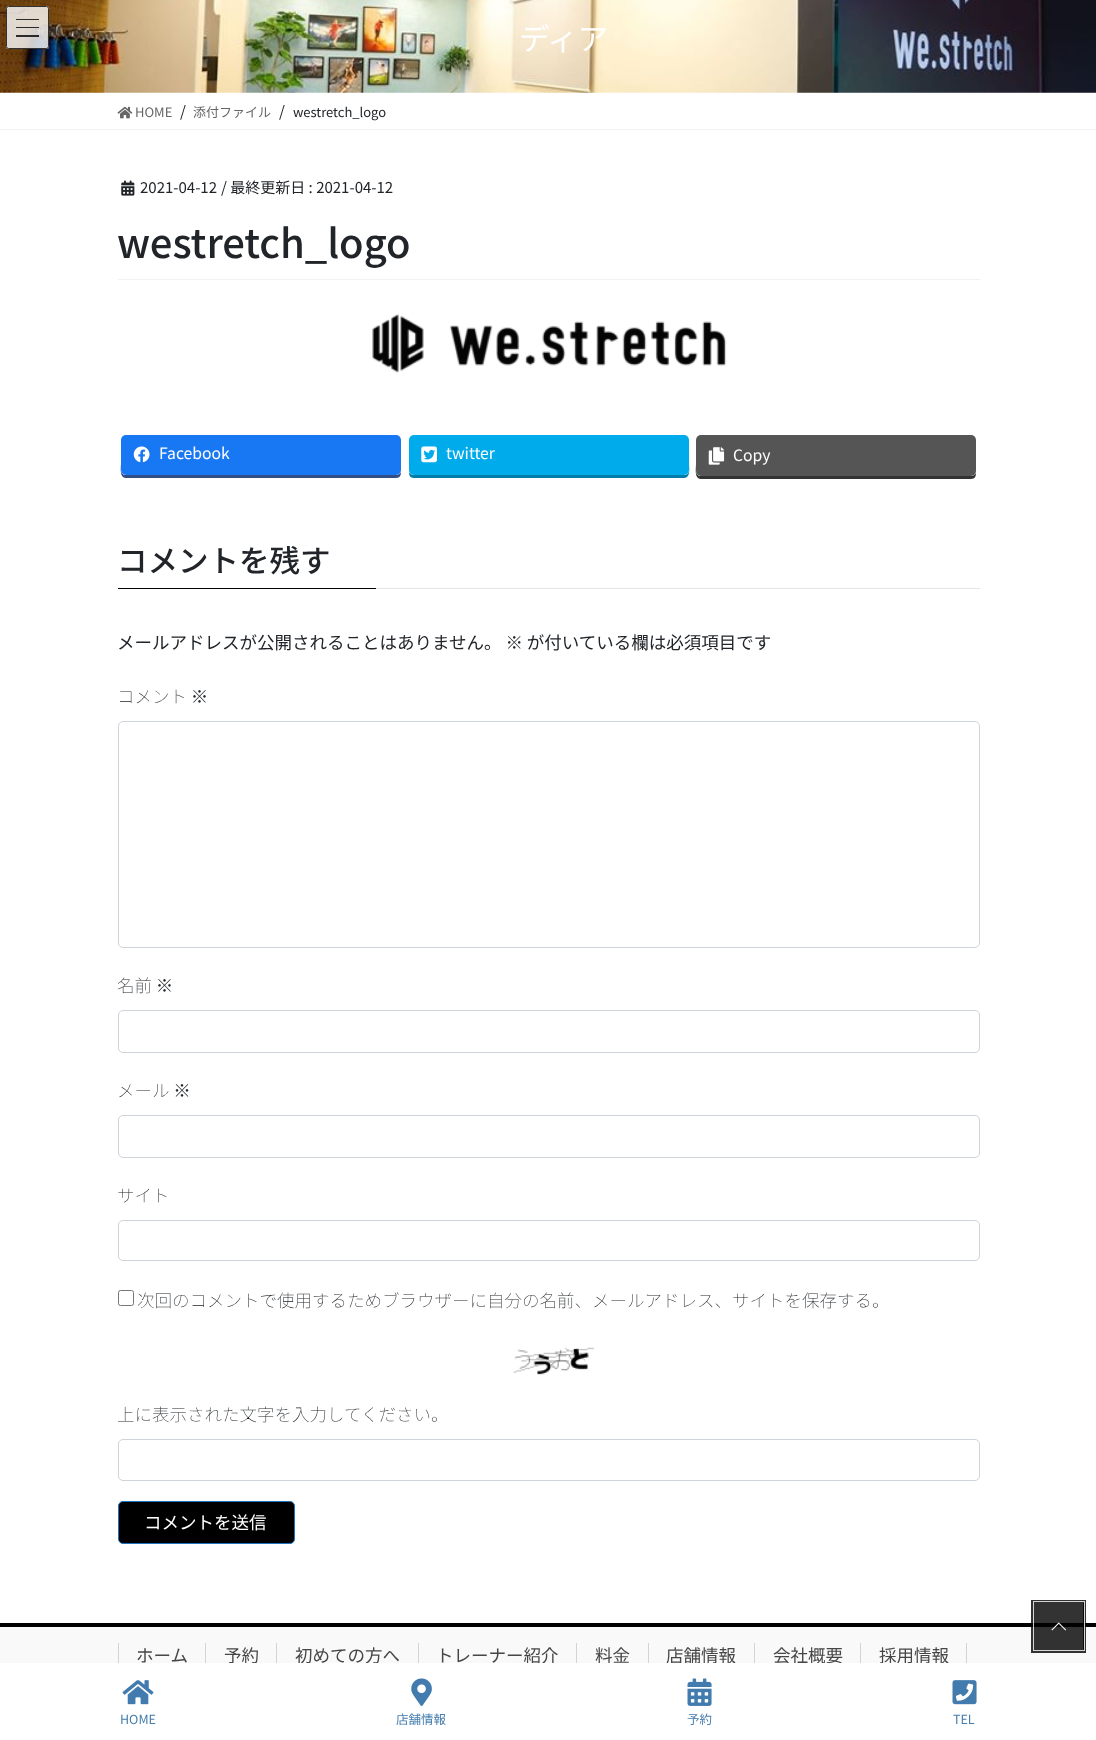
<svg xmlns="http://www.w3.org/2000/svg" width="1096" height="1740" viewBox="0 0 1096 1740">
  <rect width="100%" height="100%" fill="rgb(255,255,255)"/>
  <image x="0" y="0" width="1096" height="93" href="pic1.png"/>
  <rect x="6" y="6" width="43" height="43" rx="2.5" fill="rgba(255,255,255,0.8)"/>
  <rect x="16" y="19" width="23" height="1" fill="rgba(0,0,0,0.8)"/>
  <rect x="16" y="27" width="23" height="1" fill="rgba(0,0,0,0.8)"/>
  <rect x="16" y="35" width="23" height="2" fill="rgba(0,0,0,0.8)"/>
  <rect x="6.5" y="6.5" width="42" height="42" rx="2" fill="none" stroke="rgb(51,51,51)"/>
  <text x="519" y="50" font-family="Noto Sans JP" font-size="30.5" fill="rgb(255,255,255)">ディア</text>
  <rect x="0" y="129" width="1096" height="1" fill="rgb(242,242,242)"/>
  <image x="117" y="106" width="16" height="13" href="pic2.png"/>
  <text x="135" y="117" font-family="Noto Sans JP" font-size="13" fill="rgb(102,102,102)">HOME</text>
  <text x="180" y="117" font-family="Noto Sans JP" font-size="15" fill="rgb(33,37,41)">/</text>
  <text x="193" y="117" font-family="Noto Sans JP" font-size="13" fill="rgb(102,102,102)">添付ファイル</text>
  <text x="279" y="117" font-family="Noto Sans JP" font-size="15" fill="rgb(33,37,41)">/</text>
  <text x="293" y="117" font-family="Noto Sans JP" font-size="13" fill="rgb(33,37,41)">westretch_logo</text>
  <rect x="118" y="279" width="862" height="1" fill="rgb(242,242,242)"/>
  <image x="121" y="180" width="14" height="16" href="pic3.png"/>
  <g font-family="Noto Sans JP" font-size="15" fill="rgb(33,37,41)">
    <text x="140" y="193">2021-04-12</text>
    <text x="221" y="193">/ 最終更新日 : 2021-04-12</text>
  </g>
  <text x="117" y="258" font-family="Noto Sans JP" font-size="40" font-weight="500" fill="rgb(33,37,41)">westretch_logo</text>
  <image x="372" y="314" width="355" height="59" href="pic4.png"/>
  <path d="M121 441V463C121 467 119 478 126 478H396C400 478 401 475 401 472C400 474 398 475 396 475H126C123 475 121 473 121 470Z" fill="rgb(52,78,132)"/>
  <rect x="121" y="435" width="280" height="40" rx="5" fill="rgb(24,119,242)"/>
  <image x="133" y="446" width="17" height="17" href="pic5.png"/>
  <text x="159" y="459" font-family="Noto Sans JP" font-size="15.75" fill="rgb(255,255,255)">Facebook</text>
  <path d="M409 472C409 475 410 478 414 478H684C691 478 689 467 689 463V441V470C689 473 687 475 684 475H414C412 475 410 474 409 472Z" fill="rgb(0,126,170)"/>
  <rect x="409" y="435" width="280" height="40" rx="5" fill="rgb(0,171,236)"/>
  <image x="421" y="446" width="16" height="17" href="pic6.png"/>
  <text x="446" y="459" font-family="Noto Sans JP" font-size="15.75" fill="rgb(255,255,255)">twitter</text>
  <path d="M696 441V464C696 468 694 479 701 479H971C975 479 976 476 976 473C975 475 973 476 971 476H701C698 476 696 474 696 471Z" fill="rgb(51,51,51)"/>
  <rect x="696" y="435" width="280" height="41" rx="5" fill="rgb(85,85,85)"/>
  <image x="708" y="447" width="17" height="18" href="pic7.png"/>
  <text x="733" y="461" font-family="Noto Sans JP" font-size="15.75" fill="rgb(255,255,255)">Copy</text>
  <rect x="376" y="588" width="604" height="1" fill="rgb(230,230,230)"/>
  <text x="117" y="572" font-family="Noto Sans JP" font-size="30.5" font-weight="500" fill="rgb(33,37,41)">コメントを残す</text>
  <rect x="118" y="588" width="258" height="1" fill="rgb(0,0,0)"/>
  <text x="117" y="649" font-family="Noto Sans JP" font-size="17.5" fill="rgb(33,37,41)">メールアドレスが公開されることはありません。 ※ が付いている欄は必須項目です</text>
  <text x="117" y="703" font-family="Noto Sans JP" font-size="17.5" font-weight="100" fill="rgb(33,37,41)">コメント ※</text>
  <rect x="118.5" y="721.5" width="861" height="226" rx="4.5" fill="none" stroke="rgb(206,212,218)"/>
  <text x="117" y="992" font-family="Noto Sans JP" font-size="17.5" font-weight="100" fill="rgb(33,37,41)">名前 ※</text>
  <rect x="118.5" y="1010.5" width="861" height="42" rx="4.5" fill="none" stroke="rgb(206,212,218)"/>
  <text x="117" y="1097" font-family="Noto Sans JP" font-size="17.5" font-weight="100" fill="rgb(33,37,41)">メール ※</text>
  <rect x="118.5" y="1115.5" width="861" height="42" rx="4.5" fill="none" stroke="rgb(206,212,218)"/>
  <text x="117" y="1202" font-family="Noto Sans JP" font-size="17.5" font-weight="100" fill="rgb(33,37,41)">サイト</text>
  <rect x="118.5" y="1220.5" width="861" height="40" rx="4.5" fill="none" stroke="rgb(206,212,218)"/>
  <rect x="118.5" y="1290.5" width="15" height="15" rx="2" fill="none" stroke="rgb(118,118,118)"/>
  <text x="137" y="1307" font-family="Noto Sans JP" font-size="17.5" font-weight="100" fill="rgb(33,37,41)">次回のコメントで使用するためブラウザーに自分の名前、メールアドレス、サイトを保存する。</text>
  <image x="513" y="1347" width="81" height="28" href="pic8.png"/>
  <text x="117" y="1421" font-family="Noto Sans JP" font-size="17.5" font-weight="100" fill="rgb(33,37,41)">上に表示された文字を入力してください。</text>
  <rect x="118.5" y="1439.5" width="861" height="41" rx="4.5" fill="none" stroke="rgb(206,212,218)"/>
  <rect x="118.5" y="1501.5" width="176" height="42" rx="4.5" fill="rgb(0,0,0)" stroke="rgb(30,115,190)"/>
  <text x="144" y="1529" font-family="Noto Sans JP" font-size="17.5" fill="rgb(255,255,255)">コメントを送信</text>
  <rect x="0" y="1627" width="1096" height="36" fill="rgb(249,249,249)"/>
  <rect x="0" y="1623" width="1096" height="4" fill="rgb(0,0,0)"/>
  <rect x="1032.5" y="1601.5" width="52" height="50" fill="none" stroke="rgba(0,0,0,0.8)" stroke-width="3"/>
  <rect x="1033.5" y="1601.5" width="51" height="49" fill="none" stroke="rgba(255,255,255,0.8)"/>
  <rect x="1034" y="1603" width="50" height="47" fill="rgba(0,0,0,0.8)"/>
  <image x="1051" y="1622" width="15" height="9" href="pic9.png"/>
  <text x="136" y="1662" font-family="Noto Sans JP" font-size="17.5" fill="rgb(70,70,70)">ホーム</text>
  <rect x="118" y="1643" width="1" height="25" fill="rgb(212,212,212)"/>
  <text x="224" y="1662" font-family="Noto Sans JP" font-size="17.5" fill="rgb(70,70,70)">予約</text>
  <rect x="205" y="1643" width="1" height="25" fill="rgb(212,212,212)"/>
  <text x="295" y="1662" font-family="Noto Sans JP" font-size="17.5" fill="rgb(70,70,70)">初めての方へ</text>
  <rect x="276" y="1643" width="1" height="25" fill="rgb(212,212,212)"/>
  <text x="436" y="1662" font-family="Noto Sans JP" font-size="17.5" fill="rgb(70,70,70)">トレーナー紹介</text>
  <rect x="418" y="1643" width="1" height="25" fill="rgb(212,212,212)"/>
  <text x="595" y="1662" font-family="Noto Sans JP" font-size="17.5" fill="rgb(70,70,70)">料金</text>
  <rect x="576" y="1643" width="1" height="25" fill="rgb(212,212,212)"/>
  <text x="666" y="1662" font-family="Noto Sans JP" font-size="17.5" fill="rgb(70,70,70)">店舗情報</text>
  <rect x="648" y="1643" width="1" height="25" fill="rgb(212,212,212)"/>
  <text x="773" y="1662" font-family="Noto Sans JP" font-size="17.5" fill="rgb(70,70,70)">会社概要</text>
  <rect x="754" y="1643" width="1" height="25" fill="rgb(212,212,212)"/>
  <text x="879" y="1662" font-family="Noto Sans JP" font-size="17.5" fill="rgb(70,70,70)">採用情報</text>
  <rect x="966" y="1643" width="1" height="25" fill="rgb(212,212,212)"/>
  <rect x="860" y="1643" width="1" height="25" fill="rgb(212,212,212)"/>
  <rect x="118" y="1663" width="849" height="5" fill="rgb(255,255,255)"/>
  <image x="122" y="1680" width="32" height="25" href="pic10.png"/>
  <text x="120" y="1724" font-family="Noto Sans JP" font-size="12.5" fill="rgb(67,124,173)">HOME</text>
  <image x="411" y="1678" width="21" height="28" href="pic11.png"/>
  <text x="396" y="1724" font-family="Noto Sans JP" font-size="12.5" fill="rgb(67,124,173)">店舗情報</text>
  <image x="687" y="1678" width="25" height="28" href="pic12.png"/>
  <text x="687" y="1724" font-family="Noto Sans JP" font-size="12.5" fill="rgb(67,124,173)">予約</text>
  <image x="952" y="1680" width="25" height="25" href="pic13.png"/>
  <text x="953" y="1724" font-family="Noto Sans JP" font-size="12.5" fill="rgb(67,124,173)">TEL</text>
</svg>
